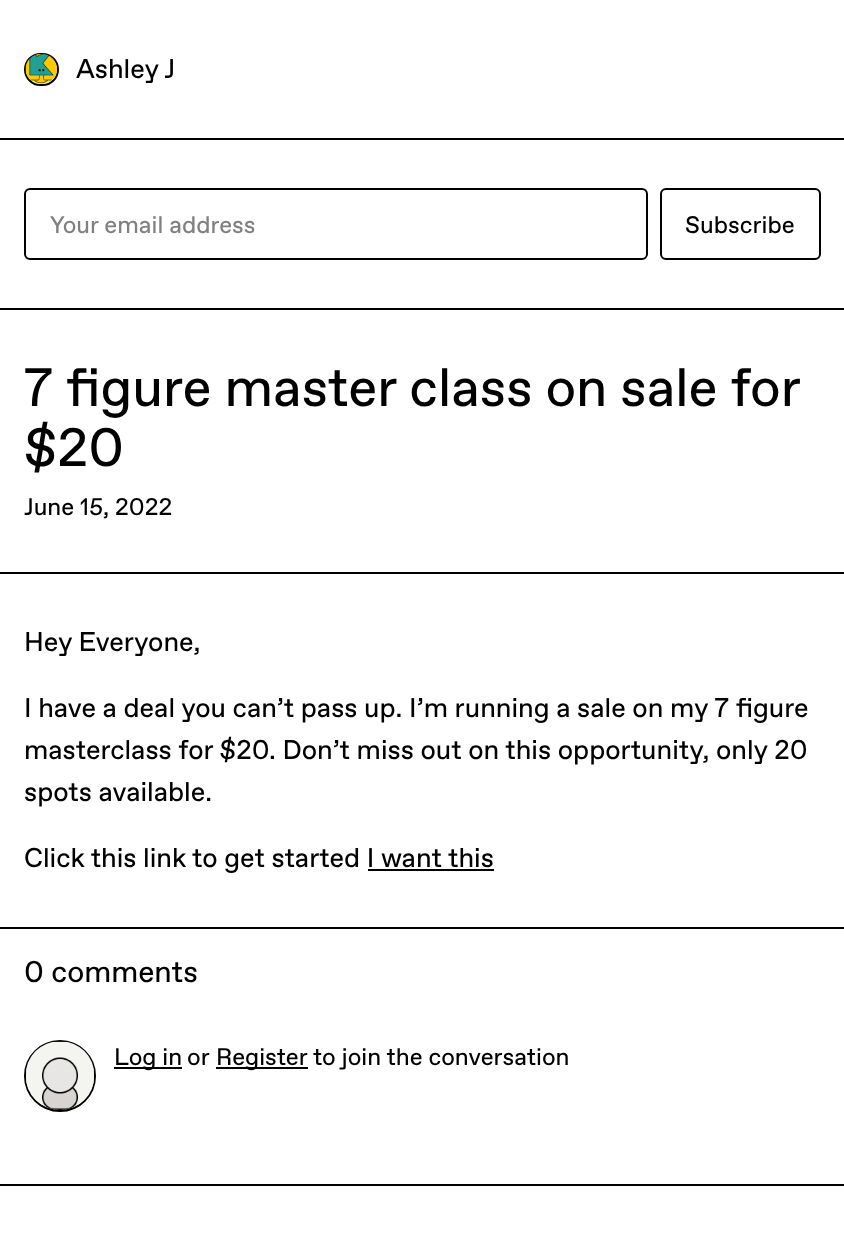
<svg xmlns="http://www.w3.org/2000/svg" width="844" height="1234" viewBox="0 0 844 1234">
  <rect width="100%" height="100%" fill="rgb(255,255,255)"/>
  <rect x="0" y="138" width="844" height="2" fill="rgb(0,0,0)"/>
  <rect x="25" y="54" width="33" height="31" rx="15.5" fill="none" stroke="rgb(0,0,0)" stroke-width="2"/>
  <image x="25" y="54" width="32" height="30" href="pic1.png"/>
  <text x="76" y="78" font-family="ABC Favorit" font-size="27" fill="rgb(0,0,0)">Ashley J</text>
  <rect x="0" y="308" width="844" height="2" fill="rgb(0,0,0)"/>
  <rect x="25" y="189" width="622" height="70" rx="5" fill="none" stroke="rgb(0,0,0)" stroke-width="2"/>
  <text x="50" y="233" font-family="ABC Favorit" font-size="24" fill="rgb(128,128,128)">Your email address</text>
  <rect x="661" y="189" width="159" height="70" rx="5" fill="none" stroke="rgb(0,0,0)" stroke-width="2"/>
  <text x="685" y="233" font-family="ABC Favorit" font-size="24" fill="rgb(0,0,0)">Subscribe</text>
  <rect x="0" y="572" width="844" height="2" fill="rgb(0,0,0)"/>
  <g font-family="ABC Favorit" font-size="54" fill="rgb(0,0,0)">
    <text>
      <tspan x="24" y="406" word-spacing="-0.25">7 figure master class on sale for</tspan>
      <tspan x="24" y="466">$20</tspan>
    </text>
  </g>
  <text x="24" y="515" font-family="ABC Favorit" font-size="24" fill="rgb(0,0,0)">June 15, 2022</text>
  <rect x="0" y="927" width="844" height="2" fill="rgb(0,0,0)"/>
  <g font-family="ABC Favorit" font-size="27" fill="rgb(0,0,0)">
    <text x="24" y="651">Hey Everyone,</text>
    <text>
      <tspan x="24" y="717">I have a deal you can’t pass up. I’m running a sale on my 7 figure</tspan>
      <tspan x="24" y="759">masterclass for $20. Don’t miss out on this opportunity, only 20</tspan>
      <tspan x="24" y="801">spots available.</tspan>
    </text>
    <text x="24" y="867">Click this link to get started I want this</text>
  </g>
  <rect x="368" y="869" width="126" height="2" fill="rgb(0,0,0)"/>
  <rect x="0" y="1184" width="844" height="2" fill="rgb(0,0,0)"/>
  <text x="24" y="982" font-family="ABC Favorit" font-size="30" fill="rgb(0,0,0)">0 comments</text>
  <circle cx="60" cy="1076" r="35" fill="none" stroke="rgb(0,0,0)" stroke-width="2"/>
  <image x="26" y="1041" width="68" height="69" href="pic2.png"/>
  <rect x="114" y="1067" width="68" height="2" fill="rgb(0,0,0)"/>
  <g font-family="ABC Favorit" font-size="24" fill="rgb(0,0,0)">
    <text x="114" y="1065">Log in</text>
    <text x="187" y="1065">or</text>
  </g>
  <rect x="216" y="1067" width="92" height="2" fill="rgb(0,0,0)"/>
  <g font-family="ABC Favorit" font-size="24" fill="rgb(0,0,0)">
    <text x="216" y="1065">Register</text>
    <text x="313" y="1065">to join the conversation</text>
  </g>
</svg>
